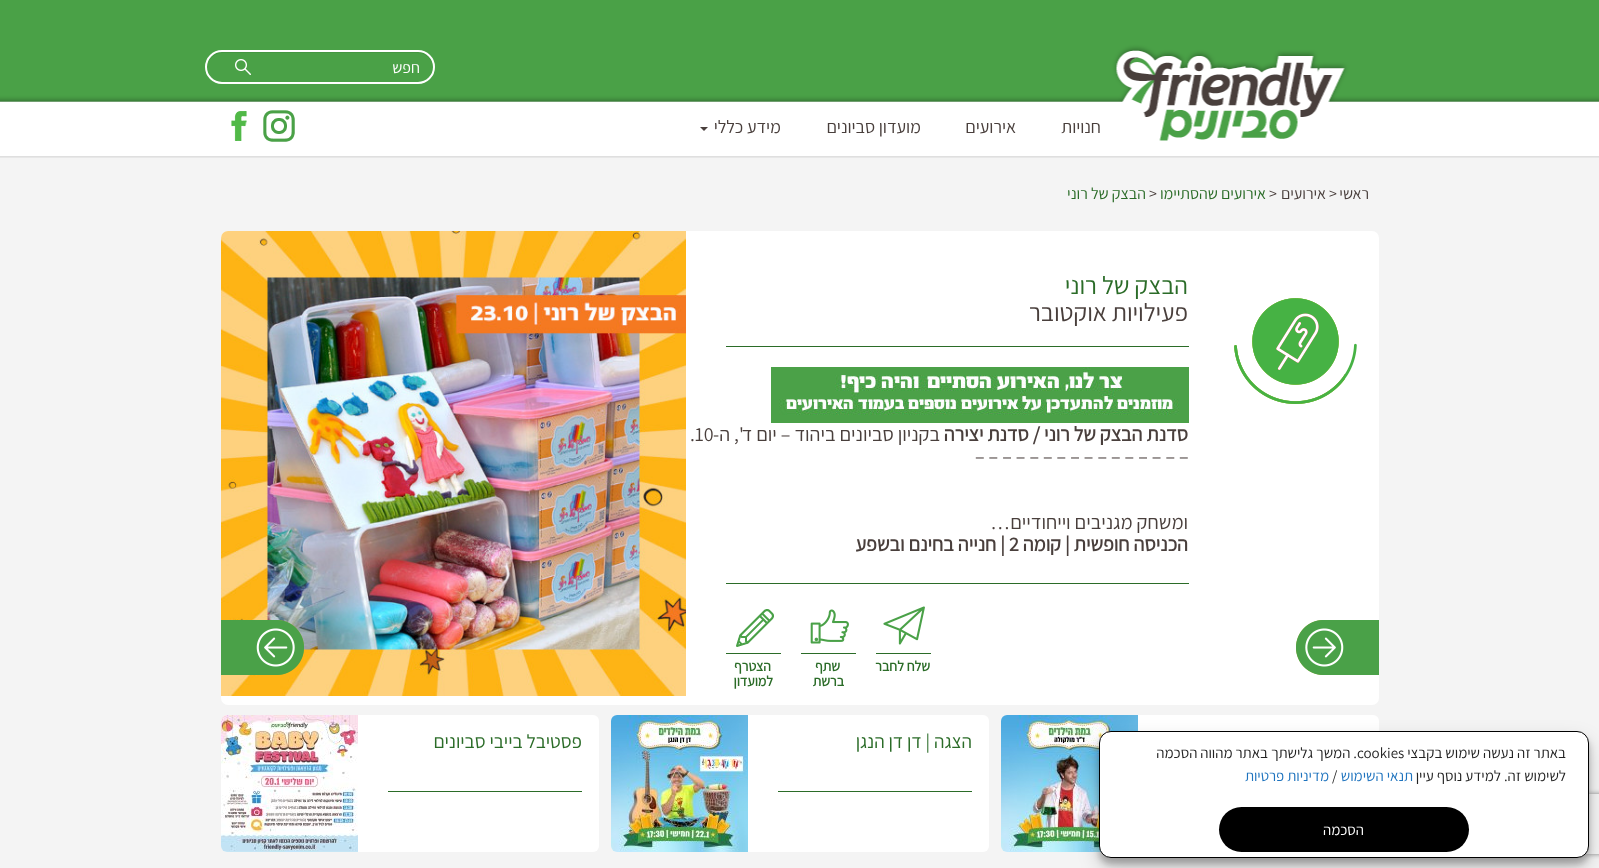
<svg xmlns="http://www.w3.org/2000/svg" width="1599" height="868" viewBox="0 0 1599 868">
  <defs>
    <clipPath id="clip1"><path d="M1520 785H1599V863H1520ZM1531 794H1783C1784 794 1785 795 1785 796V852C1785 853 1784 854 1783 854H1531C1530 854 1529 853 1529 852V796C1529 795 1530 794 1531 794Z" clip-rule="evenodd"/></clipPath>
  </defs>
  <rect width="100%" height="100%" fill="rgb(244,244,244)"/>
  <image x="0" y="0" width="1599" height="158" href="pic1.png"/>
  <path d="M222 53H418C426 53 433 60 433 68C434 44 395 52 385 52H255C245 52 206 44 207 68C207 60 214 53 222 53Z" fill="rgb(68,149,66)"/>
  <rect x="206" y="51" width="228" height="32" rx="16" fill="none" stroke="rgb(255,255,255)" stroke-width="2"/>
  <text x="420" y="73" font-family="Assistant" font-size="16" font-weight="200" direction="rtl" fill="rgb(255,255,255)">חפש</text>
  <image x="235" y="59" width="16" height="16" href="pic2.png"/>
  <g font-family="Assistant" font-size="18" font-weight="200" direction="rtl" fill="rgb(73,63,60)">
    <text x="1101" y="133">חנויות</text>
    <text x="1016" y="133">אירועים</text>
    <text x="921" y="133">מועדון סביונים</text>
    <text x="781" y="133">מידע כללי</text>
  </g>
  <path d="M700 127H708L704 131Z" fill="rgb(73,63,60)"/>
  <image x="263" y="110" width="32" height="32" href="pic3.png"/>
  <image x="231" y="111" width="16" height="30" href="pic4.png"/>
  <text x="1369" y="199" font-family="Assistant" font-size="16" font-weight="200" direction="rtl" fill="rgb(73,63,60)">ראשי</text>
  <text x="1329" y="199" font-family="Assistant" font-size="16" font-weight="200" fill="rgb(73,63,60)">&gt;</text>
  <text x="1326" y="199" font-family="Assistant" font-size="16" font-weight="200" direction="rtl" fill="rgb(73,63,60)">אירועים</text>
  <text x="1269" y="199" font-family="Assistant" font-size="16" font-weight="200" fill="rgb(73,63,60)">&gt;</text>
  <text x="1266" y="199" font-family="Assistant" font-size="16" font-weight="200" direction="rtl" fill="rgb(43,108,40)">אירועים שהסתיימו</text>
  <text x="1149" y="199" font-family="Assistant" font-size="16" font-weight="200" fill="rgb(73,63,60)">&gt;</text>
  <text x="1146" y="199" font-family="Assistant" font-size="16" font-weight="200" direction="rtl" fill="rgb(43,108,40)">הבצק של רוני</text>
  <rect x="221" y="231" width="1158" height="474" rx="7" fill="rgb(255,255,255)"/>
  <image x="1234" y="298" width="123" height="106" href="pic5.png"/>
  <rect x="726" y="346" width="463" height="1" fill="rgb(43,108,40)"/>
  <text x="1188" y="294" font-family="Assistant" font-size="25" font-weight="200" direction="rtl" fill="rgb(43,108,40)">הבצק של רוני</text>
  <text x="1188" y="321" font-family="Assistant" font-size="25" font-weight="200" direction="rtl" fill="rgb(73,63,60)">פעילויות אוקטובר</text>
  <image x="221" y="231" width="465" height="465" href="pic6.png"/>
  <image x="771" y="367" width="418" height="56" href="pic7.png"/>
  <text x="1188" y="441" font-family="Assistant" font-size="20" font-weight="bold" direction="rtl" fill="rgb(73,63,60)">סדנת הבצק של רוני / סדנת יצירה</text>
  <text x="940" y="441" font-family="Assistant" font-size="20" font-weight="200" direction="rtl" fill="rgb(73,63,60)">בקניון סביונים ביהוד – יום ד', ה-</text>
  <g font-family="Assistant" font-size="20" font-weight="200" fill="rgb(73,63,60)">
    <text x="690" y="441">.10</text>
    <text x="975" y="463">– – – – – – – – – – – – – – – –</text>
  </g>
  <text x="1188" y="529" font-family="Assistant" font-size="20" font-weight="200" direction="rtl" fill="rgb(73,63,60)">ומשחק מגניבים וייחודיים…</text>
  <text x="1188" y="551" font-family="Assistant" font-size="20" font-weight="bold" direction="rtl" fill="rgb(73,63,60)">הכניסה חופשית | קומה</text>
  <text x="1009" y="551" font-family="Assistant" font-size="20" font-weight="bold" fill="rgb(73,63,60)">2</text>
  <text x="1005" y="551" font-family="Assistant" font-size="20" font-weight="bold" direction="rtl" fill="rgb(73,63,60)">| חנייה בחינם ובשפע</text>
  <image x="1296" y="620" width="83" height="55" href="pic8.png"/>
  <rect x="726" y="583" width="463" height="1" fill="rgb(43,108,40)"/>
  <image x="883" y="606" width="42" height="39" href="pic9.png"/>
  <rect x="876" y="653" width="55" height="1" fill="rgb(43,108,40)"/>
  <text x="930" y="671" font-family="Assistant" font-size="14" font-weight="bold" direction="rtl" fill="rgb(43,108,40)">שלח לחבר</text>
  <image x="810" y="609" width="39" height="35" href="pic10.png"/>
  <rect x="801" y="653" width="55" height="1" fill="rgb(43,108,40)"/>
  <g font-family="Assistant" font-size="14" font-weight="bold" direction="rtl" fill="rgb(43,108,40)">
    <text x="840" y="671">שתף</text>
    <text x="844" y="686">ברשת</text>
  </g>
  <image x="736" y="609" width="38" height="38" href="pic11.png"/>
  <rect x="726" y="653" width="55" height="1" fill="rgb(43,108,40)"/>
  <g font-family="Assistant" font-size="14" font-weight="bold" direction="rtl" fill="rgb(43,108,40)">
    <text x="771" y="671">הצטרף</text>
    <text x="773" y="686">למועדון</text>
  </g>
  <image x="221" y="620" width="83" height="55" href="pic12.png"/>
  <rect x="1001" y="715" width="378" height="137" rx="6" fill="rgb(255,255,255)"/>
  <image x="1001" y="715" width="137" height="137" href="pic13.png"/>
  <rect x="611" y="715" width="378" height="137" rx="6" fill="rgb(255,255,255)"/>
  <rect x="778" y="791" width="194" height="1" fill="rgb(43,108,40)"/>
  <text x="972" y="748" font-family="Assistant" font-size="19.25" font-weight="200" direction="rtl" fill="rgb(43,108,40)">הצגה | דן דן הנגן</text>
  <image x="611" y="715" width="137" height="137" href="pic14.png"/>
  <rect x="221" y="715" width="378" height="137" rx="6" fill="rgb(255,255,255)"/>
  <rect x="388" y="791" width="194" height="1" fill="rgb(43,108,40)"/>
  <text x="582" y="748" font-family="Assistant" font-size="19.25" font-weight="200" direction="rtl" fill="rgb(43,108,40)">פסטיבל בייבי סביונים</text>
  <image x="221" y="715" width="137" height="137" href="pic15.png"/>
  <rect x="1099" y="737" width="490" height="127" rx="12" fill="rgba(0,0,0,0.23)" filter="blur(3px)"/>
  <rect x="1099" y="741" width="490" height="127" rx="12" fill="rgba(0,0,0,0.19)" filter="blur(10px)"/>
  <g clip-path="url(#clip1)">
    <rect x="1529" y="794" width="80" height="60" rx="2" fill="rgb(128,128,128)" filter="blur(2.5px)"/>
  </g>
  <rect x="1099.5" y="731.5" width="489" height="126" rx="11.5" fill="rgb(255,255,255)" stroke="rgb(0,0,0)"/>
  <text x="1566" y="758" font-family="Assistant" font-size="15" font-weight="200" direction="rtl" fill="rgb(34,34,34)">באתר זה נעשה שימוש בקבצי</text>
  <text x="1357" y="758" font-family="Assistant" font-size="15" font-weight="200" fill="rgb(34,34,34)">cookies</text>
  <g font-family="Assistant" font-size="15" font-weight="200" direction="rtl" fill="rgb(34,34,34)">
    <text x="1357" y="758">. המשך גלישתך באתר מהווה הסכמה</text>
    <text x="1566" y="781">לשימוש זה. למידע נוסף עיין</text>
  </g>
  <text x="1413" y="781" font-family="Assistant" font-size="15" font-weight="200" direction="rtl" fill="rgb(30,115,190)">תנאי השימוש</text>
  <text x="1332" y="781" font-family="Assistant" font-size="15" font-weight="200" fill="rgb(34,34,34)">/</text>
  <text x="1329" y="781" font-family="Assistant" font-size="15" font-weight="200" direction="rtl" fill="rgb(30,115,190)">מדיניות פרטיות</text>
  <rect x="1219" y="807" width="250" height="45" rx="22.5" fill="rgb(0,0,0)"/>
  <text x="1364" y="835" font-family="Assistant" font-size="15" font-weight="200" direction="rtl" fill="rgb(255,255,255)">הסכמה</text>
</svg>
